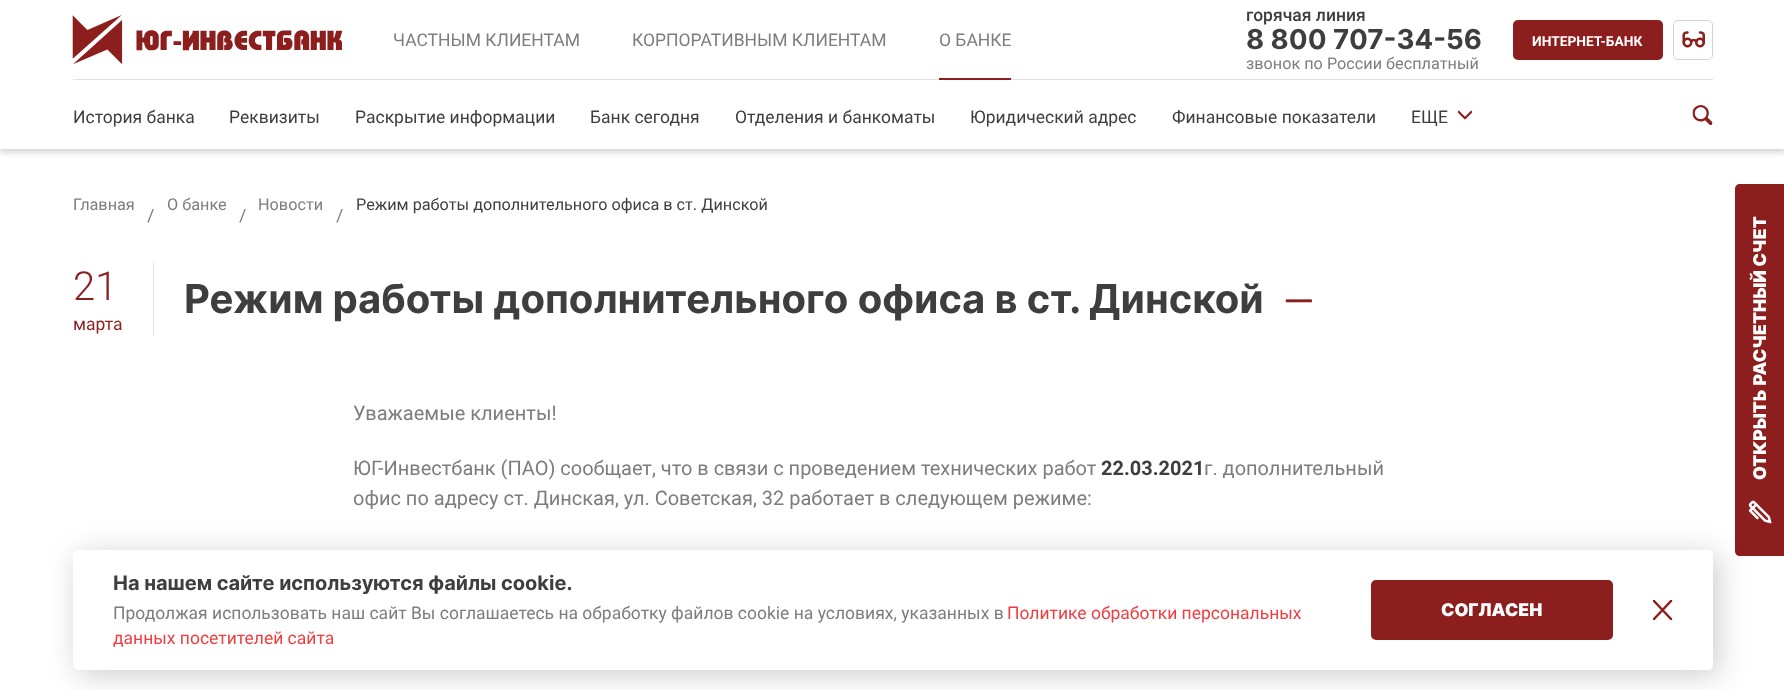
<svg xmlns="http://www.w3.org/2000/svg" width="1784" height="690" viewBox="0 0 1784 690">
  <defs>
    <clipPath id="clip1"><path d="M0 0H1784V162H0ZM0 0H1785V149H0Z" clip-rule="evenodd"/></clipPath>
    <clipPath id="clip2"><rect x="1653" y="600" width="20" height="20"/></clipPath>
  </defs>
  <rect width="100%" height="100%" fill="rgb(255,255,255)"/>
  <g clip-path="url(#clip1)">
    <rect x="0" y="4" width="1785" height="149" fill="rgba(0,0,0,0.15)" filter="blur(2.5px)"/>
  </g>
  <rect x="73" y="79" width="1640" height="1" fill="rgb(226,226,226)"/>
  <image x="72" y="15" width="271" height="50" href="pic1.png"/>
  <g font-family="Roboto" font-size="17.5" fill="rgb(125,125,125)">
    <text x="393" y="46">ЧАСТНЫМ КЛИЕНТАМ</text>
    <text x="632" y="46">КОРПОРАТИВНЫМ КЛИЕНТАМ</text>
    <text x="939" y="46">О БАНКЕ</text>
  </g>
  <rect x="939" y="78" width="72" height="2" fill="rgb(140,30,30)"/>
  <text x="1246" y="21" font-family="Roboto" font-size="17.5" font-weight="500" fill="rgb(62,62,62)">горячая линия</text>
  <text x="1246" y="49" font-family="Inter" font-size="27.5" font-weight="bold" fill="rgb(62,62,62)">8 800 707-34-56</text>
  <text x="1246" y="69" font-family="Roboto" font-size="16.25" fill="rgb(125,125,125)">звонок по России бесплатный</text>
  <rect x="1513" y="20" width="150" height="40" rx="5" fill="rgb(140,30,30)"/>
  <text x="1532" y="46" font-family="Roboto" font-size="13.75" font-weight="bold" fill="rgb(255,255,255)">ИНТЕРНЕТ-БАНК</text>
  <image x="1682" y="31" width="23" height="17" href="pic2.png"/>
  <rect x="1673.5" y="20.5" width="39" height="39" rx="4.5" fill="none" stroke="rgb(211,211,211)"/>
  <rect x="73" y="148" width="1375" height="1" fill="rgb(255,255,255)"/>
  <g font-family="Roboto" font-size="17.5" fill="rgb(62,62,62)">
    <text x="73" y="123">История банка</text>
    <text x="229" y="123">Реквизиты</text>
    <text x="355" y="123">Раскрытие информации</text>
    <text x="590" y="123">Банк сегодня</text>
    <text x="735" y="123">Отделения и банкоматы</text>
    <text x="970" y="123">Юридический адрес</text>
    <text x="1172" y="123">Финансовые показатели</text>
    <text x="1411" y="123">ЕЩЕ</text>
  </g>
  <image x="1457" y="110" width="16" height="10" href="pic3.png"/>
  <image x="1692" y="105" width="21" height="20" href="pic4.png"/>
  <rect x="1713" y="148" width="71" height="1" fill="rgb(255,255,255)"/>
  <text x="73" y="210" font-family="Roboto" font-size="16.25" fill="rgb(125,125,125)">Главная</text>
  <text x="154" y="210" transform="rotate(180 154 210)" font-family="Roboto" font-size="17.5" fill="rgb(125,125,125)">/</text>
  <text x="167" y="210" font-family="Roboto" font-size="16.25" fill="rgb(125,125,125)">О банке</text>
  <text x="246" y="210" transform="rotate(180 246 210)" font-family="Roboto" font-size="17.5" fill="rgb(125,125,125)">/</text>
  <text x="258" y="210" font-family="Roboto" font-size="16.25" fill="rgb(125,125,125)">Новости</text>
  <text x="343" y="210" transform="rotate(180 343 210)" font-family="Roboto" font-size="17.5" fill="rgb(125,125,125)">/</text>
  <text x="356" y="210" font-family="Roboto" font-size="16.25" fill="rgb(62,62,62)">Режим работы дополнительного офиса в ст. Динской</text>
  <rect x="153" y="261" width="1" height="75" fill="rgb(226,226,226)"/>
  <text x="73" y="300" font-family="Roboto" font-size="40" font-weight="300" fill="rgb(140,30,30)">21</text>
  <text x="73" y="330" font-family="Roboto" font-size="17.5" fill="rgb(140,30,30)">марта</text>
  <text x="184" y="313" font-family="Inter" font-size="40" font-weight="bold" fill="rgb(62,62,62)">Режим работы дополнительного офиса в ст. Динской</text>
  <text x="1283" y="315" font-family="Roboto" font-size="40" fill="rgb(140,30,30)">—</text>
  <g font-family="Roboto" font-size="20" fill="rgb(125,125,125)">
    <text x="353" y="420">Уважаемые клиенты!</text>
    <text x="353" y="475">ЮГ-Инвестбанк (ПАО) сообщает, что в связи с проведением технических работ</text>
  </g>
  <text x="1101" y="475" font-family="Roboto" font-size="20" font-weight="bold" fill="rgb(62,62,62)">22.03.2021</text>
  <g font-family="Roboto" font-size="20" fill="rgb(125,125,125)">
    <text x="1204" y="475">г. дополнительный</text>
    <text x="353" y="505">офис по адресу ст. Динская, ул. Советская, 32 работает в следующем режиме:</text>
  </g>
  <path d="M1735 551V189C1735 186 1737 184 1740 184H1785V556H1740C1737 556 1735 554 1735 551Z" fill="rgb(140,30,30)"/>
  <text x="1766" y="480" transform="rotate(-90 1766 480)" font-family="Inter" font-size="17.5" font-weight="900" fill="rgb(255,255,255)">ОТКРЫТЬ РАСЧЕТНЫЙ СЧЕТ</text>
  <image x="1748" y="500" width="24" height="24" href="pic5.png"/>
  <rect x="78" y="555" width="1640" height="120" rx="5" fill="rgba(0,0,0,0.2)" filter="blur(15px)"/>
  <rect x="73" y="550" width="1640" height="120" rx="5" fill="rgb(255,255,255)"/>
  <text x="113" y="590" font-family="Inter" font-size="20" font-weight="bold" fill="rgb(62,62,62)">На нашем сайте используются файлы cookie.</text>
  <text x="113" y="619" font-family="Roboto" font-size="17.5" fill="rgb(125,125,125)">Продолжая использовать наш сайт Вы соглашаетесь на обработку файлов cookie на условиях, указанных в</text>
  <g font-family="Roboto" font-size="17.5" fill="rgb(240,61,64)">
    <text x="1007" y="619">Политике обработки персональных</text>
    <text x="113" y="644">данных посетителей сайта</text>
  </g>
  <rect x="1371" y="580" width="242" height="60" rx="5" fill="rgb(140,30,30)"/>
  <text x="1441" y="616" font-family="Inter" font-size="17.5" font-weight="900" fill="rgb(255,255,255)">СОГЛАСЕН</text>
  <g clip-path="url(#clip2)">
    <path d="M1671 601L1654 619M1654 601L1671 619" fill="none" stroke="rgb(140,30,30)" stroke-width="2.5" stroke-linecap="round"/>
  </g>
</svg>
